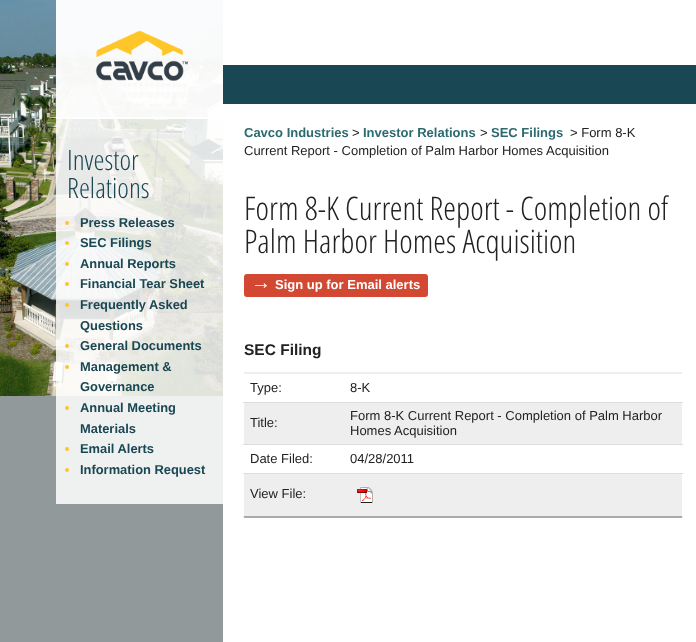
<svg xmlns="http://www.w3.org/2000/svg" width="696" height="642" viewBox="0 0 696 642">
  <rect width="100%" height="100%" fill="rgb(255,255,255)"/>
  <rect x="223" y="65" width="473" height="39" fill="rgb(25,71,83)"/>
  <image x="0" y="0" width="223" height="396" href="pic2.png"/>
  <rect x="0" y="396" width="223" height="246" fill="rgb(146,153,155)"/>
  <rect x="56" y="0" width="167" height="504" fill="rgba(255,255,255,0.85)"/>
  <rect x="56" y="0" width="167" height="117" fill="rgba(255,255,255,0.75)"/>
  <rect x="56" y="117" width="167" height="2" fill="rgb(255,255,255)"/>
  <image x="95" y="30" width="93" height="51" href="pic1.png"/>
  <g font-family="Open Sans" font-size="28" font-weight="300" fill="rgb(25,71,83)">
    <text>
      <tspan x="67" y="170">Investor</tspan>
      <tspan x="67" y="198">Relations</tspan>
    </text>
  </g>
  <circle cx="67" cy="223" r="2" fill="rgb(255,197,47)"/>
  <text x="80" y="227" font-family="Liberation Sans" font-size="12.9" font-weight="bold" fill="rgb(25,71,83)">Press Releases</text>
  <circle cx="67" cy="243" r="2" fill="rgb(255,197,47)"/>
  <text x="80" y="247" font-family="Liberation Sans" font-size="12.9" font-weight="bold" fill="rgb(25,71,83)">SEC Filings</text>
  <circle cx="67" cy="264" r="2" fill="rgb(255,197,47)"/>
  <text x="80" y="268" font-family="Liberation Sans" font-size="12.9" font-weight="bold" fill="rgb(25,71,83)">Annual Reports</text>
  <circle cx="67" cy="284" r="2" fill="rgb(255,197,47)"/>
  <text x="80" y="288" font-family="Liberation Sans" font-size="12.9" font-weight="bold" fill="rgb(25,71,83)">Financial Tear Sheet</text>
  <circle cx="67" cy="305" r="2" fill="rgb(255,197,47)"/>
  <g font-family="Liberation Sans" font-size="12.9" font-weight="bold" fill="rgb(25,71,83)">
    <text>
      <tspan x="80" y="309">Frequently Asked</tspan>
      <tspan x="80" y="330">Questions</tspan>
    </text>
  </g>
  <circle cx="67" cy="346" r="2" fill="rgb(255,197,47)"/>
  <text x="80" y="350" font-family="Liberation Sans" font-size="12.9" font-weight="bold" fill="rgb(25,71,83)">General Documents</text>
  <circle cx="67" cy="367" r="2" fill="rgb(255,197,47)"/>
  <g font-family="Liberation Sans" font-size="12.9" font-weight="bold" fill="rgb(25,71,83)">
    <text>
      <tspan x="80" y="371">Management &amp;</tspan>
      <tspan x="80" y="391">Governance</tspan>
    </text>
  </g>
  <circle cx="67" cy="408" r="2" fill="rgb(255,197,47)"/>
  <g font-family="Liberation Sans" font-size="12.9" font-weight="bold" fill="rgb(25,71,83)">
    <text>
      <tspan x="80" y="412">Annual Meeting</tspan>
      <tspan x="80" y="433">Materials</tspan>
    </text>
  </g>
  <circle cx="67" cy="449" r="2" fill="rgb(255,197,47)"/>
  <text x="80" y="453" font-family="Liberation Sans" font-size="12.9" font-weight="bold" fill="rgb(25,71,83)">Email Alerts</text>
  <circle cx="67" cy="470" r="2" fill="rgb(255,197,47)"/>
  <text x="80" y="474" font-family="Liberation Sans" font-size="12.9" font-weight="bold" fill="rgb(25,71,83)">Information Request</text>
  <text x="244" y="137" font-family="Liberation Sans" font-size="13" font-weight="bold" fill="rgb(45,106,112)">Cavco Industries</text>
  <text x="352" y="137" font-family="Liberation Sans" font-size="13" fill="rgb(34,34,34)">&gt;</text>
  <text x="363" y="137" font-family="Liberation Sans" font-size="13" font-weight="bold" fill="rgb(45,106,112)">Investor Relations</text>
  <text x="480" y="137" font-family="Liberation Sans" font-size="13" fill="rgb(34,34,34)">&gt;</text>
  <text x="491" y="137" font-family="Liberation Sans" font-size="13" font-weight="bold" fill="rgb(45,106,112)">SEC Filings</text>
  <g font-family="Liberation Sans" font-size="13" fill="rgb(34,34,34)">
    <text x="570" y="137">&gt; Form 8-K</text>
    <text x="244" y="155">Current Report - Completion of Palm Harbor Homes Acquisition</text>
  </g>
  <g font-family="Open Sans" font-size="32.5" font-weight="300" fill="rgb(34,34,34)">
    <text>
      <tspan x="244" y="220">Form 8-K Current Report - Completion of</tspan>
      <tspan x="244" y="253">Palm Harbor Homes Acquisition</tspan>
    </text>
  </g>
  <rect x="244" y="274" width="184" height="23" rx="3" fill="rgb(211,72,50)"/>
  <text x="251" y="289" font-family="Liberation Sans" font-size="20" font-weight="bold" fill="rgb(255,255,255)">→</text>
  <text x="275" y="289" font-family="Liberation Sans" font-size="13" font-weight="bold" fill="rgb(255,255,255)">Sign up for Email alerts</text>
  <text x="244" y="355" font-family="Liberation Sans" font-size="15.5" font-weight="bold" fill="rgb(34,34,34)">SEC Filing</text>
  <rect x="244" y="372" width="438" height="2" fill="rgb(238,238,238)"/>
  <rect x="243" y="516" width="440" height="1" fill="rgb(221,221,221)"/>
  <rect x="244" y="516" width="438" height="2" fill="rgb(170,170,170)"/>
  <rect x="243" y="402" width="440" height="1" fill="rgb(221,221,221)"/>
  <g font-family="Liberation Sans" font-size="13" fill="rgb(34,34,34)">
    <text x="250" y="392">Type:</text>
    <text x="350" y="392">8-K</text>
  </g>
  <rect x="244" y="403" width="438" height="41" fill="rgb(238,238,238)"/>
  <rect x="243" y="444" width="440" height="1" fill="rgb(221,221,221)"/>
  <g font-family="Liberation Sans" font-size="13" fill="rgb(34,34,34)">
    <text x="250" y="427">Title:</text>
    <text>
      <tspan x="350" y="420">Form 8-K Current Report - Completion of Palm Harbor</tspan>
      <tspan x="350" y="435">Homes Acquisition</tspan>
    </text>
  </g>
  <rect x="243" y="473" width="440" height="1" fill="rgb(221,221,221)"/>
  <g font-family="Liberation Sans" font-size="13" fill="rgb(34,34,34)">
    <text x="250" y="463">Date Filed:</text>
    <text x="350" y="463">04/28/2011</text>
  </g>
  <rect x="244" y="474" width="438" height="42" fill="rgb(238,238,238)"/>
  <text x="250" y="498" font-family="Liberation Sans" font-size="13" fill="rgb(34,34,34)">View File:</text>
  <image x="357" y="487" width="16" height="16" href="pic3.png"/>
</svg>
